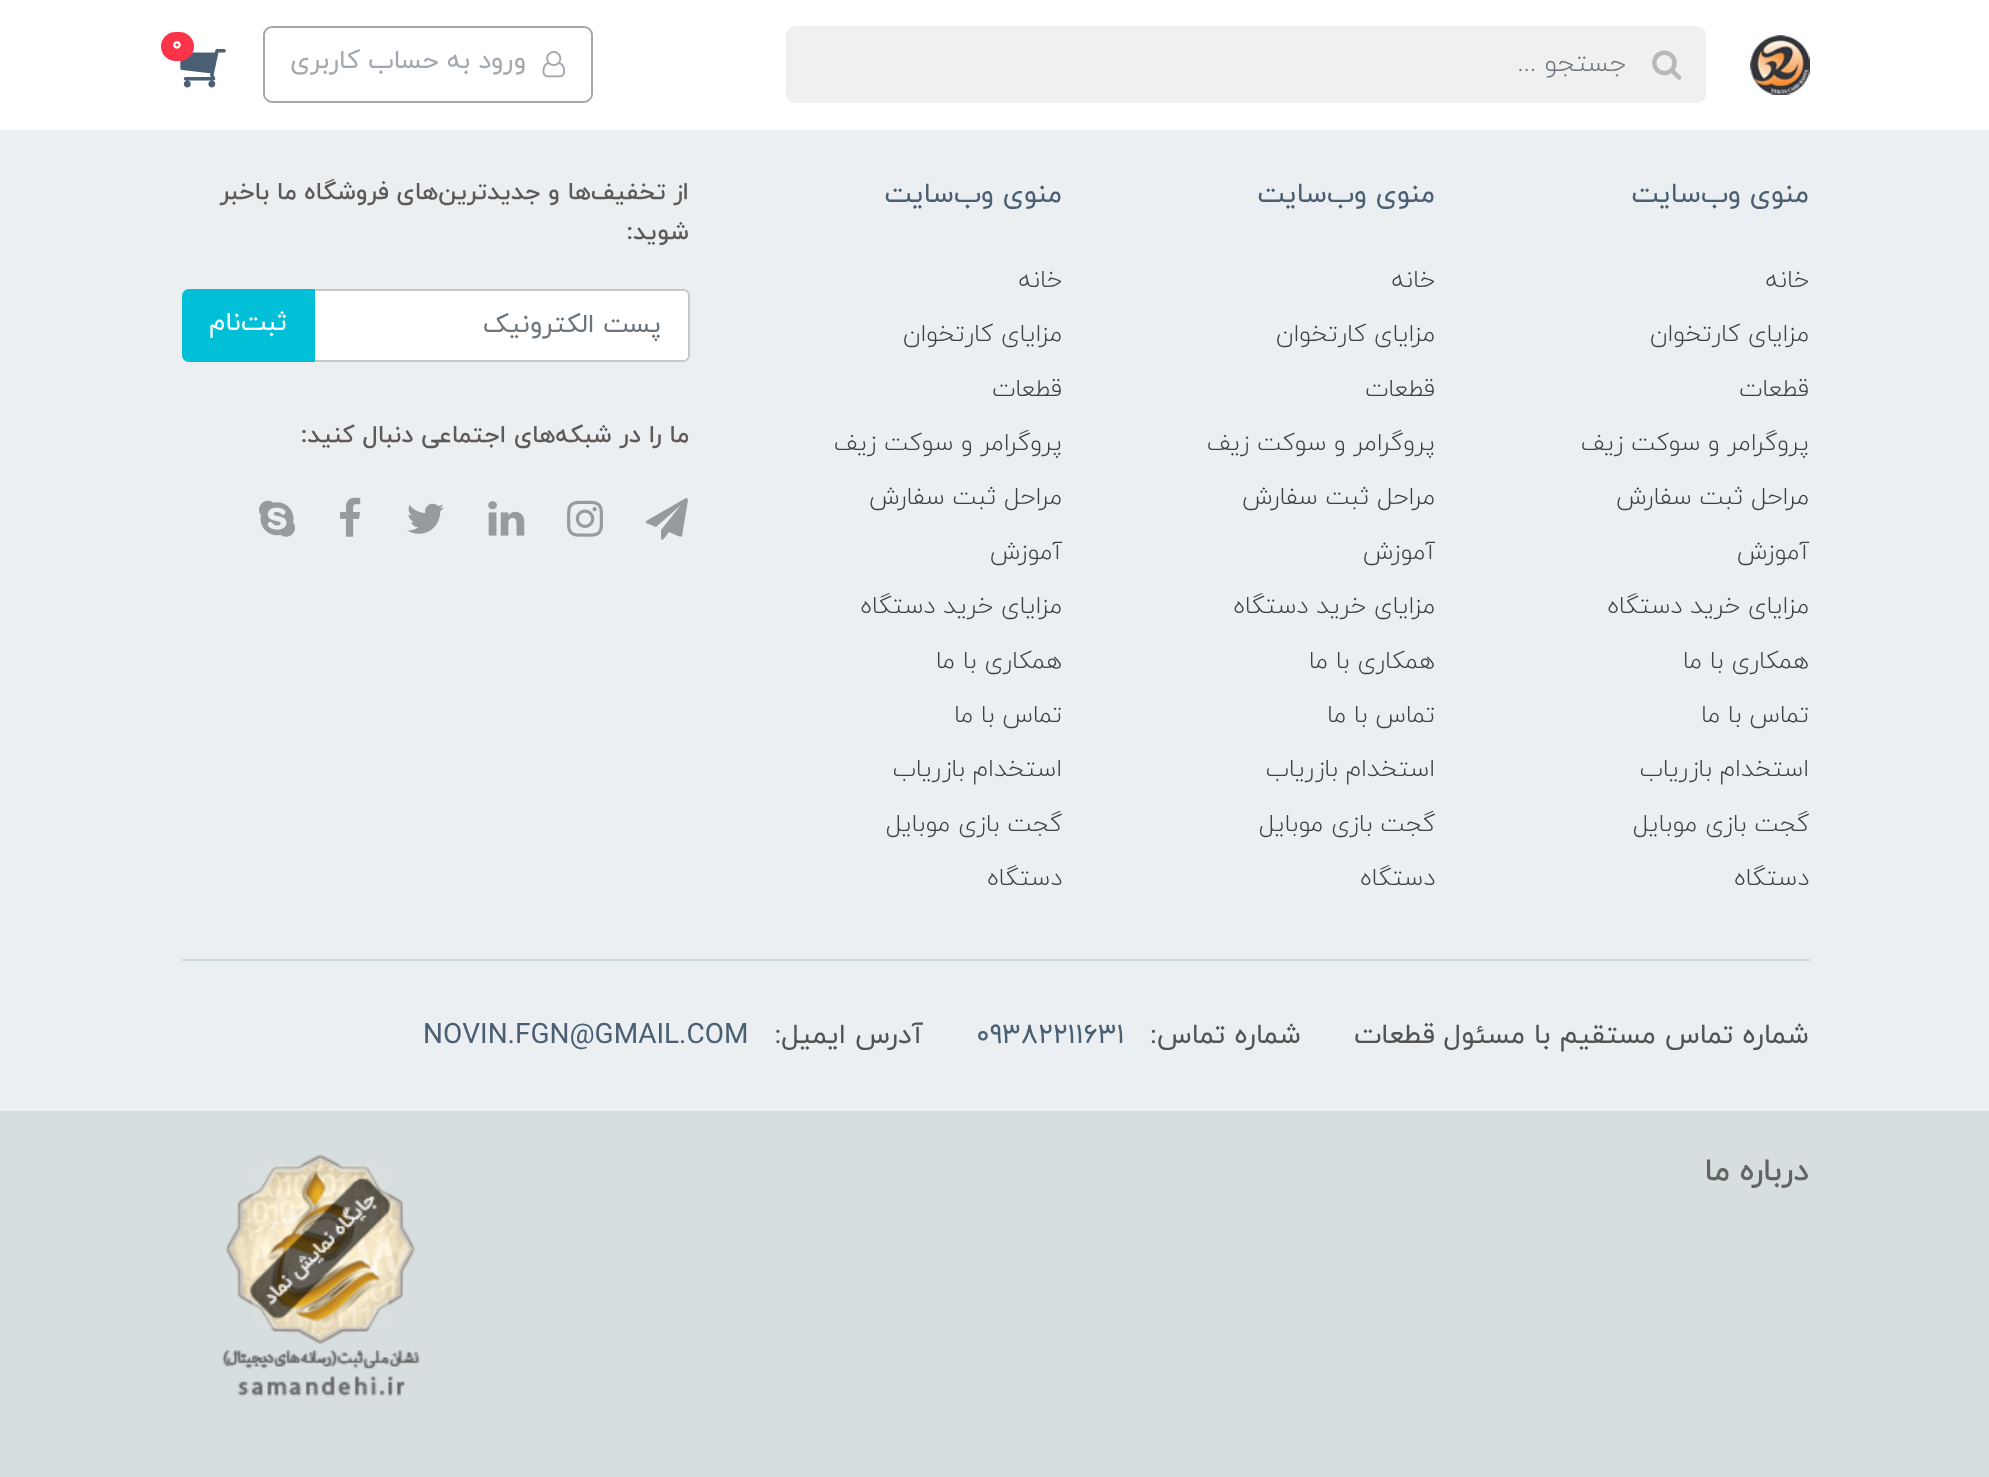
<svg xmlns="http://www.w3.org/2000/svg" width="1989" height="1477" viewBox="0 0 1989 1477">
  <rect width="100%" height="100%" fill="rgb(236,239,241)"/>
  <rect x="0" y="0" width="1989" height="130" fill="rgb(255,255,255)"/>
  <image x="1750" y="35" width="60" height="60" href="pic1.png"/>
  <rect x="787" y="27" width="918" height="75" rx="8" fill="rgb(240,240,241)" stroke="rgb(240,240,241)" stroke-width="2"/>
  <image x="1652" y="50" width="30" height="30" href="pic2.png"/>
  <text x="1626" y="71" font-family="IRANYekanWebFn" font-size="26.25" font-weight="300" direction="rtl" fill="rgb(108,117,125)">جستجو ...</text>
  <image x="180" y="49" width="46" height="39" href="pic3.png"/>
  <rect x="161" y="32" width="33" height="29" rx="14.5" fill="rgb(251,52,73)"/>
  <text x="172" y="50" font-family="IRANYekanWebFn" font-size="20" font-weight="bold" fill="rgb(255,255,255)">0</text>
  <rect x="264" y="27" width="328" height="75" rx="8" fill="none" stroke="rgb(162,168,174)" stroke-width="2"/>
  <image x="542" y="51" width="23" height="27" href="pic4.png"/>
  <text x="526" y="68" font-family="IRANYekanWebFn" font-size="26.25" direction="rtl" fill="rgb(162,168,174)">ورود به حساب کاربری</text>
  <rect x="182" y="959" width="1628" height="2" fill="rgb(207,216,220)"/>
  <text x="1809" y="202" font-family="IRANYekanWebFn" font-size="28" direction="rtl" fill="rgb(74,95,115)">منوی وب‌سایت</text>
  <g font-family="IRANYekanWebFn" font-size="24.5" font-weight="300" direction="rtl" fill="rgb(64,64,64)">
    <text x="1809" y="287">خانه</text>
    <text x="1809" y="341">مزایای کارتخوان</text>
    <text x="1809" y="396">قطعات</text>
    <text x="1809" y="450">پروگرامر و سوکت زیف</text>
    <text x="1809" y="504">مراحل ثبت سفارش</text>
    <text x="1809" y="559">آموزش</text>
    <text x="1809" y="613">مزایای خرید دستگاه</text>
    <text x="1809" y="668">همکاری با ما</text>
    <text x="1809" y="722">تماس با ما</text>
    <text x="1809" y="776">استخدام بازریاب</text>
    <text x="1809" y="831">گجت بازی موبایل</text>
    <text x="1809" y="885">دستگاه</text>
  </g>
  <text x="1435" y="202" font-family="IRANYekanWebFn" font-size="28" direction="rtl" fill="rgb(74,95,115)">منوی وب‌سایت</text>
  <g font-family="IRANYekanWebFn" font-size="24.5" font-weight="300" direction="rtl" fill="rgb(64,64,64)">
    <text x="1435" y="287">خانه</text>
    <text x="1435" y="341">مزایای کارتخوان</text>
    <text x="1435" y="396">قطعات</text>
    <text x="1435" y="450">پروگرامر و سوکت زیف</text>
    <text x="1435" y="504">مراحل ثبت سفارش</text>
    <text x="1435" y="559">آموزش</text>
    <text x="1435" y="613">مزایای خرید دستگاه</text>
    <text x="1435" y="668">همکاری با ما</text>
    <text x="1435" y="722">تماس با ما</text>
    <text x="1435" y="776">استخدام بازریاب</text>
    <text x="1435" y="831">گجت بازی موبایل</text>
    <text x="1435" y="885">دستگاه</text>
  </g>
  <text x="1062" y="202" font-family="IRANYekanWebFn" font-size="28" direction="rtl" fill="rgb(74,95,115)">منوی وب‌سایت</text>
  <g font-family="IRANYekanWebFn" font-size="24.5" font-weight="300" direction="rtl" fill="rgb(64,64,64)">
    <text x="1062" y="287">خانه</text>
    <text x="1062" y="341">مزایای کارتخوان</text>
    <text x="1062" y="396">قطعات</text>
    <text x="1062" y="450">پروگرامر و سوکت زیف</text>
    <text x="1062" y="504">مراحل ثبت سفارش</text>
    <text x="1062" y="559">آموزش</text>
    <text x="1062" y="613">مزایای خرید دستگاه</text>
    <text x="1062" y="668">همکاری با ما</text>
    <text x="1062" y="722">تماس با ما</text>
    <text x="1062" y="776">استخدام بازریاب</text>
    <text x="1062" y="831">گجت بازی موبایل</text>
    <text x="1062" y="885">دستگاه</text>
  </g>
  <g font-family="IRANYekanWebFn" font-size="24.5" font-weight="500" direction="rtl" fill="rgb(93,89,89)">
    <text>
      <tspan x="689" y="199">از تخفیف‌ها و جدیدترین‌های فروشگاه ما باخبر</tspan>
      <tspan x="689" y="239">شوید:</tspan>
    </text>
  </g>
  <path d="M314 290H683C686.5 290 689 292.5 689 296V355C689 358.5 686.5 361 683 361H314Z" fill="rgb(255,255,255)" stroke="rgb(200,200,200)" stroke-width="2"/>
  <text x="661" y="332" font-family="IRANYekanWebFn" font-size="26.25" direction="rtl" fill="rgb(108,117,125)">پست الکترونیک</text>
  <path d="M189 290H314V361H189C185.5 361 183 358.5 183 355V296C183 292.5 185.5 290 189 290Z" fill="rgb(0,191,214)" stroke="rgb(0,191,214)" stroke-width="2"/>
  <text x="287" y="330" font-family="IRANYekanWebFn" font-size="26.25" direction="rtl" fill="rgb(255,255,255)">ثبت‌نام</text>
  <text x="689" y="442" font-family="IRANYekanWebFn" font-size="24.5" font-weight="500" direction="rtl" fill="rgb(93,89,89)">ما را در شبکه‌های اجتماعی دنبال کنید:</text>
  <path d="M687 498L688 500L683 530C682 536 683 538 678 536L669 532C661 543 661 543 661 530L681 505L656 527C645 522 641 524 653 517L686 498Z" fill="rgb(151,155,160)"/>
  <image x="567" y="500" width="36" height="37" href="pic5.png"/>
  <image x="488" y="501" width="37" height="35" href="pic6.png"/>
  <image x="407" y="503" width="37" height="31" href="pic7.png"/>
  <image x="340" y="497" width="21" height="40" href="pic8.png"/>
  <image x="259" y="500" width="36" height="37" href="pic9.png"/>
  <g font-family="IRANYekanWebFn" font-size="28" direction="rtl" fill="rgb(83,83,83)">
    <text x="1809" y="1043">شماره تماس مستقیم با مسئول قطعات</text>
    <text x="1301" y="1043">شماره تماس:</text>
  </g>
  <text x="976" y="1043" font-family="IRANYekanWebFn" font-size="28" fill="rgb(74,95,115)">09382211631</text>
  <text x="923" y="1043" font-family="IRANYekanWebFn" font-size="28" direction="rtl" fill="rgb(83,83,83)">آدرس ایمیل:</text>
  <text x="423" y="1043" font-family="IRANYekanWebFn" font-size="28" fill="rgb(74,95,115)">NOVIN.FGN@GMAIL.COM</text>
  <rect x="0" y="1111" width="1989" height="366" fill="rgb(215,222,224)"/>
  <text x="1809" y="1180" font-family="IRANYekanWebFn" font-size="31.5" font-weight="500" direction="rtl" fill="rgb(99,99,99)">درباره ما</text>
  <image x="222" y="1154" width="199" height="243" href="pic10.png"/>
</svg>
